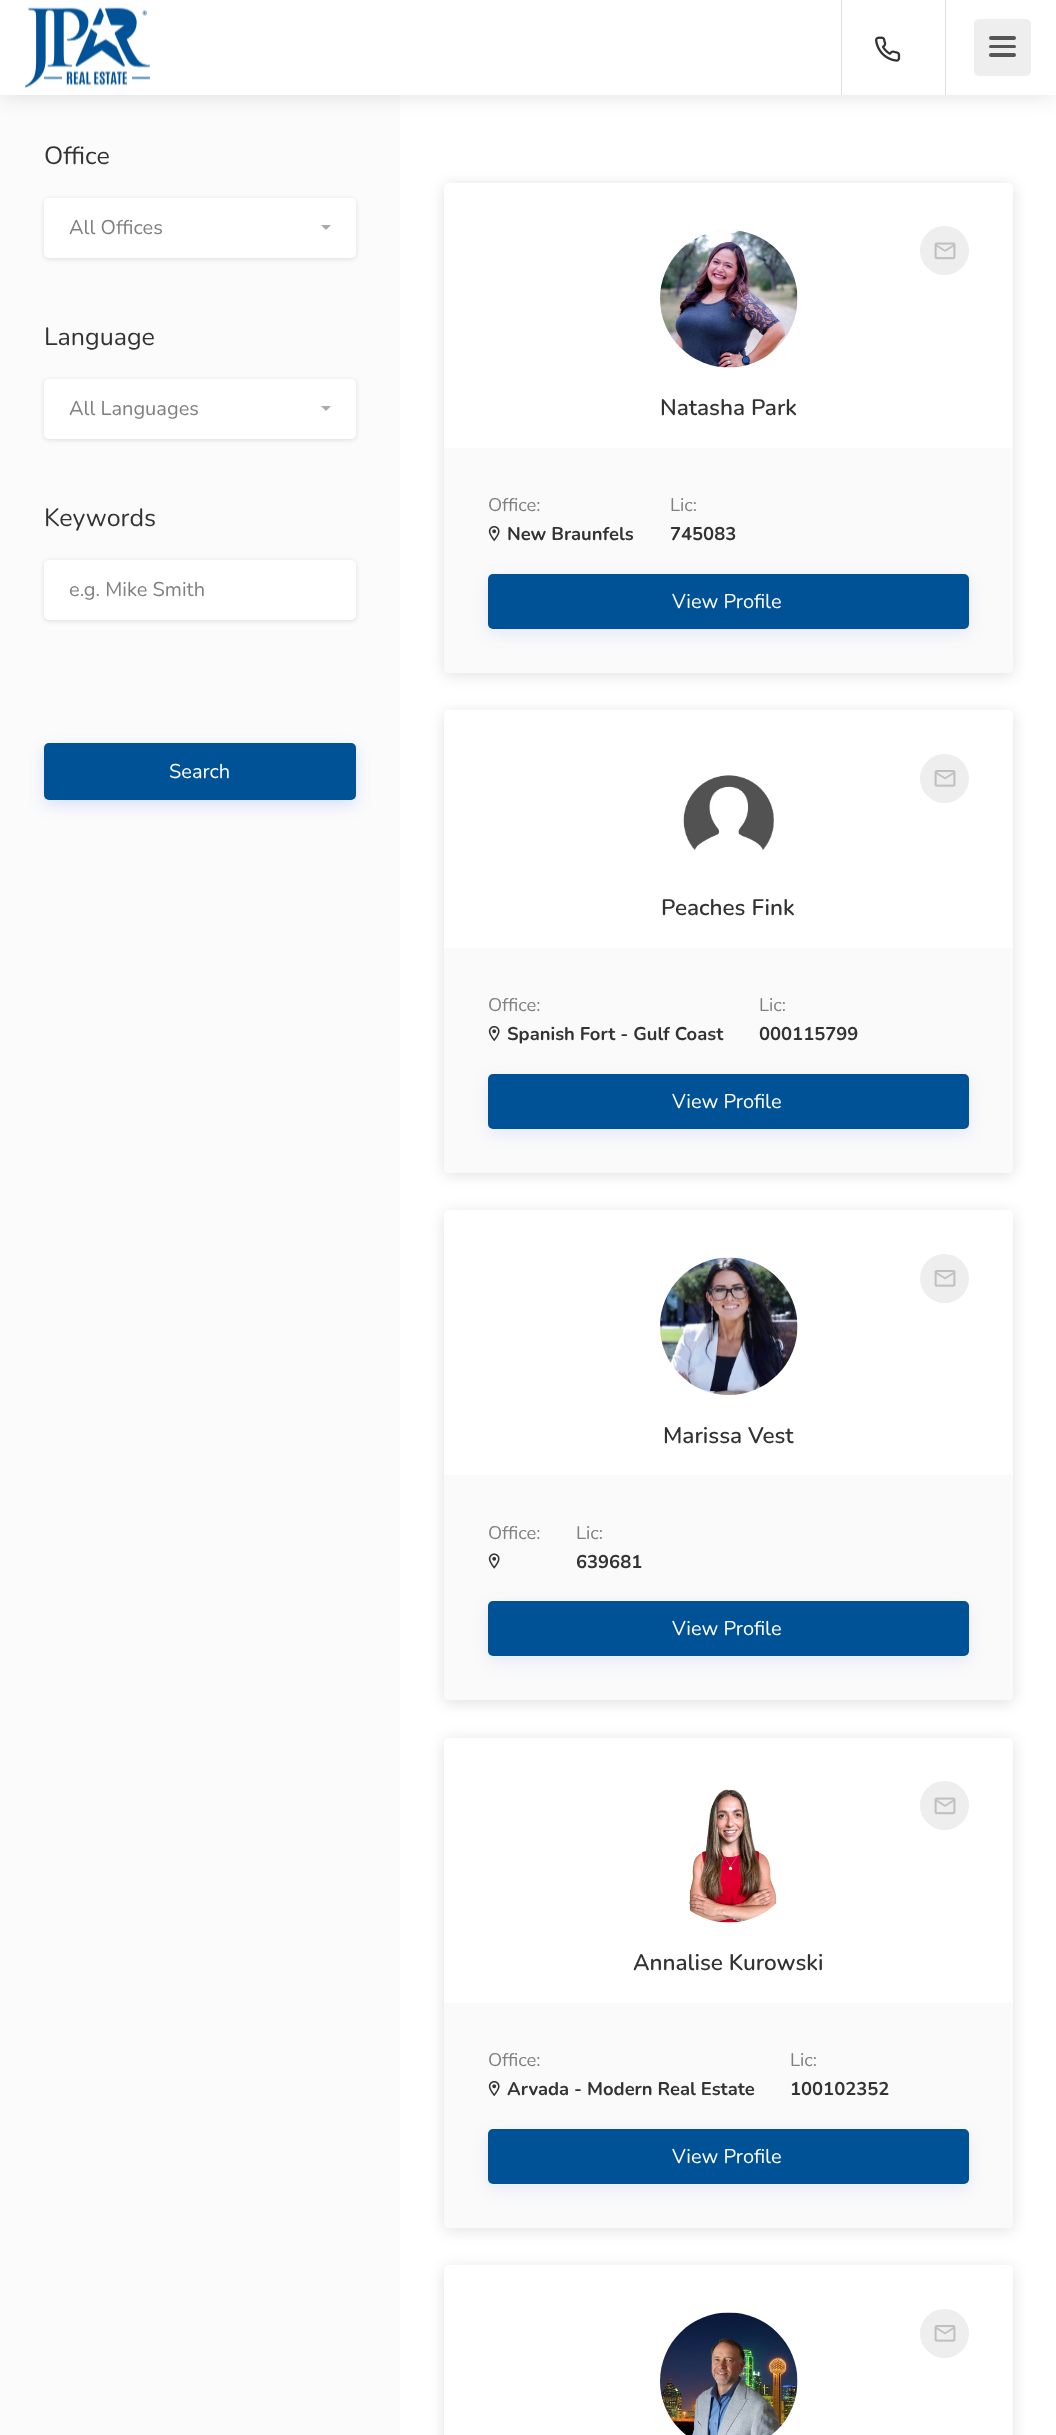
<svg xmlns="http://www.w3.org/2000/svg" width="1056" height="2435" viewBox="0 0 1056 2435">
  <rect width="100%" height="100%" fill="rgb(251,251,251)"/>
  <rect x="400" y="95" width="656" height="2340" fill="rgb(255,255,255)"/>
  <rect x="0" y="0" width="1056" height="95" fill="rgba(0,0,0,0.12)" filter="blur(11px)"/>
  <rect x="0" y="0" width="1056" height="95" fill="rgb(255,255,255)"/>
  <image x="25" y="7" width="125" height="81" href="pic1.png"/>
  <rect x="945" y="0" width="1" height="95" fill="rgb(224,224,224)"/>
  <rect x="841" y="0" width="1" height="95" fill="rgb(224,224,224)"/>
  <image x="875" y="36" width="26" height="26" href="pic2.png"/>
  <rect x="974" y="19" width="57" height="57" rx="5" fill="rgb(238,238,238)"/>
  <rect x="989" y="53" width="27" height="4" rx="2" fill="rgb(85,85,85)"/>
  <rect x="989" y="36" width="27" height="4" rx="2" fill="rgb(85,85,85)"/>
  <rect x="989" y="45" width="27" height="3" rx="1.5" fill="rgb(85,85,85)"/>
  <text x="44" y="164" font-family="Nunito" font-size="25" fill="rgb(51,51,51)">Office</text>
  <rect x="44" y="199" width="312" height="60" rx="5" fill="rgba(0,0,0,0.12)" filter="blur(2.5px)"/>
  <rect x="44" y="198" width="312" height="60" rx="5" fill="rgb(255,255,255)"/>
  <text x="69" y="234" font-family="Nunito" font-size="20" fill="rgb(128,128,128)">All Offices</text>
  <path d="M321 225H331L326 230Z" fill="rgb(170,170,170)"/>
  <text x="44" y="345" font-family="Nunito" font-size="25" fill="rgb(51,51,51)">Language</text>
  <rect x="44" y="380" width="312" height="60" rx="5" fill="rgba(0,0,0,0.12)" filter="blur(2.5px)"/>
  <rect x="44" y="379" width="312" height="60" rx="5" fill="rgb(255,255,255)"/>
  <text x="69" y="415" font-family="Nunito" font-size="20" fill="rgb(128,128,128)">All Languages</text>
  <path d="M321 406H331L326 411Z" fill="rgb(170,170,170)"/>
  <text x="44" y="526" font-family="Nunito" font-size="25" fill="rgb(51,51,51)">Keywords</text>
  <rect x="44" y="561" width="312" height="60" rx="5" fill="rgba(0,0,0,0.12)" filter="blur(2.5px)"/>
  <rect x="44" y="560" width="312" height="60" rx="5" fill="rgb(255,255,255)"/>
  <text x="69" y="596" font-family="Nunito" font-size="20" fill="rgb(128,128,128)">e.g. Mike Smith</text>
  <rect x="44" y="748" width="312" height="57" rx="5" fill="rgba(42,65,232,0.15)" filter="blur(7.5px)"/>
  <rect x="44" y="743" width="312" height="57" rx="5" fill="rgb(0,82,150)"/>
  <text x="169" y="778" font-family="Nunito" font-size="20" fill="rgb(255,255,255)">Search</text>
  <rect x="444" y="185" width="569" height="490" rx="5" fill="rgba(0,0,0,0.12)" filter="blur(7.5px)"/>
  <rect x="444" y="183" width="569" height="490" rx="5" fill="rgb(255,255,255)"/>
  <image x="660" y="230" width="138" height="138" href="pic3.png"/>
  <circle cx="944.5" cy="250.5" r="24.5" fill="rgb(238,238,238)"/>
  <image x="934" y="242" width="22" height="18" href="pic4.png"/>
  <text x="660" y="415" font-family="Nunito" font-size="22.5" font-weight="600" fill="rgb(51,51,51)">Natasha Park</text>
  <path d="M444 448H1013V668C1013 671 1011 673 1008 673H449C446 673 444 671 444 668Z" fill="rgb(250,250,250)"/>
  <text x="488" y="511" font-family="Nunito" font-size="18.4" fill="rgb(128,128,128)">Office:</text>
  <image x="488" y="525" width="12" height="17" href="pic5.png"/>
  <text x="507" y="540" font-family="Nunito" font-size="18.4" font-weight="bold" fill="rgb(51,51,51)">New Braunfels</text>
  <text x="670" y="511" font-family="Nunito" font-size="18.4" fill="rgb(128,128,128)">Lic:</text>
  <text x="670" y="540" font-family="Nunito" font-size="18.4" font-weight="bold" fill="rgb(51,51,51)">745083</text>
  <rect x="488" y="579" width="481" height="55" rx="5" fill="rgba(42,65,232,0.1)" filter="blur(7.5px)"/>
  <rect x="488" y="574" width="481" height="55" rx="5" fill="rgb(0,82,150)"/>
  <text x="672" y="608" font-family="Nunito" font-size="20" fill="rgb(255,255,255)">View Profile</text>
  <rect x="444" y="713" width="569" height="462" rx="5" fill="rgba(0,0,0,0.12)" filter="blur(7.5px)"/>
  <rect x="444" y="710" width="569" height="463" rx="5" fill="rgb(255,255,255)"/>
  <image x="683" y="775" width="91" height="76" href="pic6.png"/>
  <circle cx="944.5" cy="778.5" r="24.5" fill="rgb(238,238,238)"/>
  <image x="934" y="770" width="22" height="17" href="pic7.png"/>
  <text x="661" y="915" font-family="Nunito" font-size="22.5" font-weight="600" fill="rgb(51,51,51)">Peaches Fink</text>
  <path d="M444 948H1013V1168C1013 1171 1011 1173 1008 1173H449C446 1173 444 1171 444 1168Z" fill="rgb(250,250,250)"/>
  <text x="488" y="1011" font-family="Nunito" font-size="18.4" fill="rgb(128,128,128)">Office:</text>
  <image x="488" y="1025" width="12" height="17" href="pic5.png"/>
  <text x="507" y="1040" font-family="Nunito" font-size="18.4" font-weight="bold" fill="rgb(51,51,51)">Spanish Fort - Gulf Coast</text>
  <text x="759" y="1011" font-family="Nunito" font-size="18.4" fill="rgb(128,128,128)">Lic:</text>
  <text x="759" y="1040" font-family="Nunito" font-size="18.4" font-weight="bold" fill="rgb(51,51,51)">000115799</text>
  <rect x="488" y="1079" width="481" height="55" rx="5" fill="rgba(42,65,232,0.1)" filter="blur(7.5px)"/>
  <rect x="488" y="1074" width="481" height="55" rx="5" fill="rgb(0,82,150)"/>
  <text x="672" y="1108" font-family="Nunito" font-size="20" fill="rgb(255,255,255)">View Profile</text>
  <rect x="444" y="1213" width="569" height="490" rx="5" fill="rgba(0,0,0,0.12)" filter="blur(7.5px)"/>
  <rect x="444" y="1210" width="569" height="490" rx="5" fill="rgb(255,255,255)"/>
  <image x="660" y="1257" width="138" height="138" href="pic8.png"/>
  <circle cx="944.5" cy="1278.5" r="24.5" fill="rgb(238,238,238)"/>
  <image x="934" y="1270" width="22" height="17" href="pic7.png"/>
  <text x="663" y="1443" font-family="Nunito" font-size="22.5" font-weight="600" fill="rgb(51,51,51)">Marissa Vest</text>
  <path d="M444 1475H1013V1695C1013 1698 1011 1700 1008 1700H449C446 1700 444 1698 444 1695Z" fill="rgb(250,250,250)"/>
  <text x="488" y="1539" font-family="Nunito" font-size="18.4" fill="rgb(128,128,128)">Office:</text>
  <image x="488" y="1553" width="12" height="16" href="pic9.png"/>
  <text x="576" y="1539" font-family="Nunito" font-size="18.4" fill="rgb(128,128,128)">Lic:</text>
  <text x="576" y="1568" font-family="Nunito" font-size="18.4" font-weight="bold" fill="rgb(51,51,51)">639681</text>
  <rect x="488" y="1606" width="481" height="55" rx="5" fill="rgba(42,65,232,0.1)" filter="blur(7.5px)"/>
  <rect x="488" y="1601" width="481" height="55" rx="5" fill="rgb(0,82,150)"/>
  <text x="672" y="1635" font-family="Nunito" font-size="20" fill="rgb(255,255,255)">View Profile</text>
  <rect x="444" y="1740" width="569" height="490" rx="5" fill="rgba(0,0,0,0.12)" filter="blur(7.5px)"/>
  <rect x="444" y="1738" width="569" height="490" rx="5" fill="rgb(255,255,255)"/>
  <image x="689" y="1789" width="88" height="134" href="pic10.png"/>
  <circle cx="944.5" cy="1805.5" r="24.5" fill="rgb(238,238,238)"/>
  <image x="934" y="1797" width="22" height="18" href="pic4.png"/>
  <text x="633" y="1970" font-family="Nunito" font-size="22.5" font-weight="600" fill="rgb(51,51,51)">Annalise Kurowski</text>
  <path d="M444 2003H1013V2223C1013 2226 1011 2228 1008 2228H449C446 2228 444 2226 444 2223Z" fill="rgb(250,250,250)"/>
  <text x="488" y="2066" font-family="Nunito" font-size="18.4" fill="rgb(128,128,128)">Office:</text>
  <image x="488" y="2080" width="12" height="17" href="pic5.png"/>
  <text x="507" y="2095" font-family="Nunito" font-size="18.4" font-weight="bold" fill="rgb(51,51,51)">Arvada - Modern Real Estate</text>
  <text x="790" y="2066" font-family="Nunito" font-size="18.4" fill="rgb(128,128,128)">Lic:</text>
  <text x="790" y="2095" font-family="Nunito" font-size="18.4" font-weight="bold" fill="rgb(51,51,51)">100102352</text>
  <rect x="488" y="2134" width="481" height="55" rx="5" fill="rgba(42,65,232,0.1)" filter="blur(7.5px)"/>
  <rect x="488" y="2129" width="481" height="55" rx="5" fill="rgb(0,82,150)"/>
  <text x="672" y="2163" font-family="Nunito" font-size="20" fill="rgb(255,255,255)">View Profile</text>
  <rect x="444" y="2268" width="569" height="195" rx="5" fill="rgba(0,0,0,0.12)" filter="blur(7.5px)"/>
  <rect x="444" y="2265" width="569" height="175" rx="5" fill="rgb(255,255,255)"/>
  <image x="660" y="2312" width="138" height="123" href="pic11.png"/>
  <circle cx="944.5" cy="2333.5" r="24.5" fill="rgb(238,238,238)"/>
  <image x="934" y="2325" width="22" height="17" href="pic7.png"/>
</svg>
